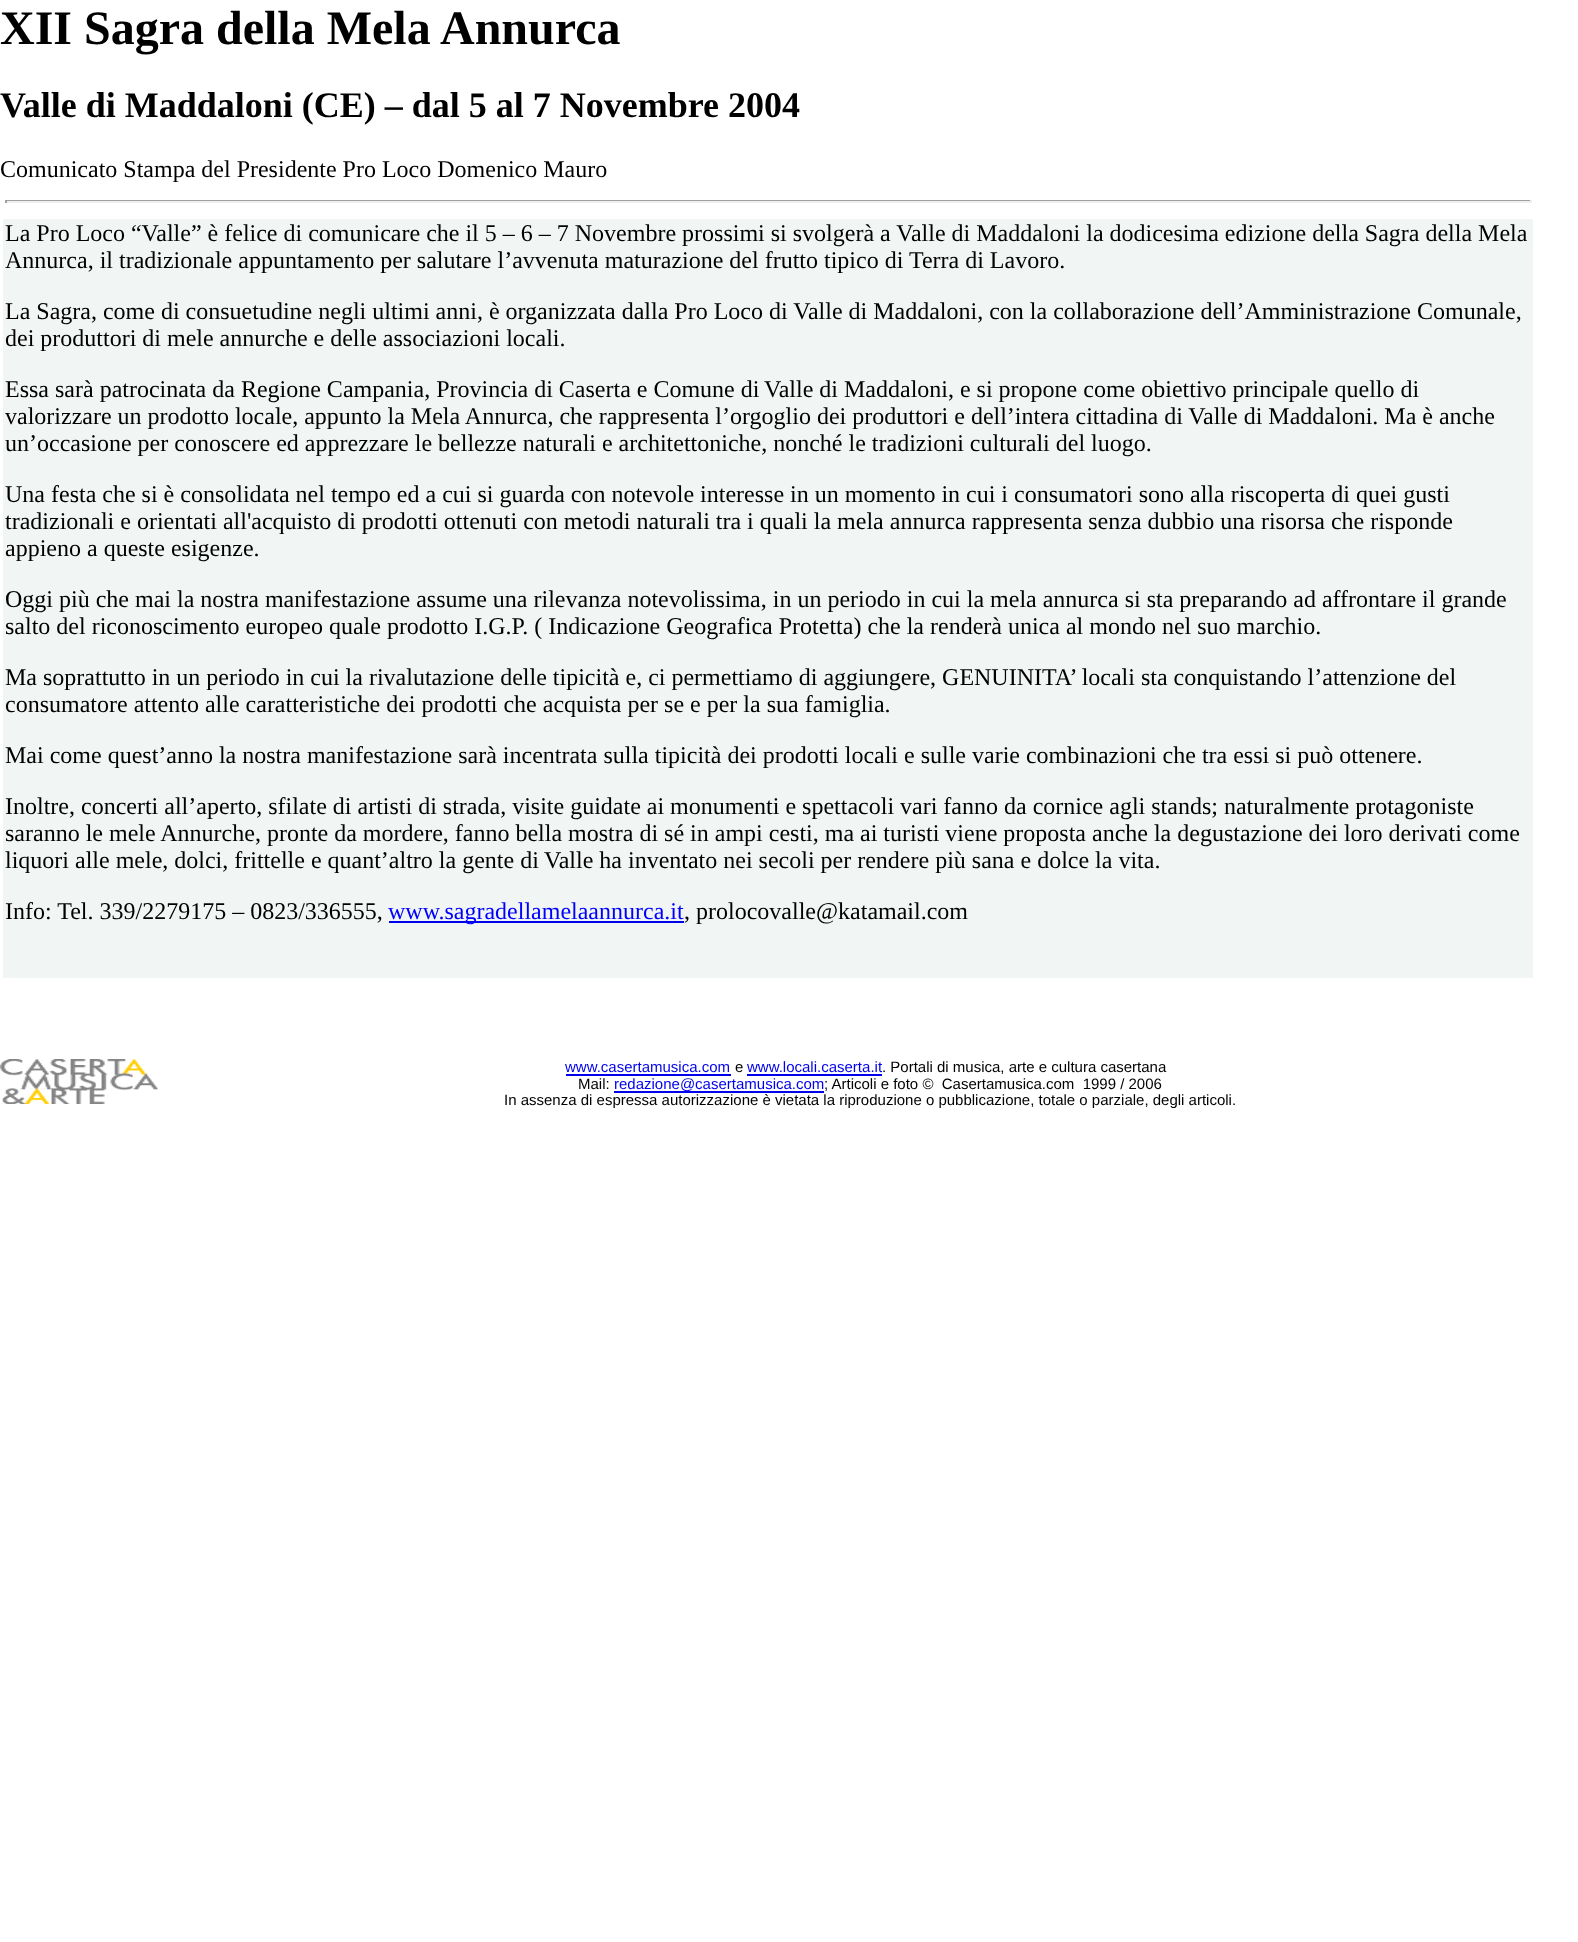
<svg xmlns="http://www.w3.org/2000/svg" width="1578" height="1942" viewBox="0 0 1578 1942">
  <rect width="100%" height="100%" fill="rgb(255,255,255)"/>
  <text x="0" y="44" font-family="Liberation Serif" font-size="48" font-weight="bold" fill="rgb(0,0,0)">XII Sagra della Mela Annurca</text>
  <text x="0" y="117" font-family="Liberation Serif" font-size="36" font-weight="bold" fill="rgb(0,0,0)">Valle di Maddaloni (CE) – dal 5 al 7 Novembre 2004</text>
  <text x="0" y="177" font-family="Liberation Serif" font-size="24" fill="rgb(0,0,0)">Comunicato Stampa del Presidente Pro Loco Domenico Mauro</text>
  <rect x="5" y="200" width="1527" height="1" fill="rgb(159,159,159)"/>
  <rect x="1530" y="200" width="2" height="3" fill="rgb(238,238,238)"/>
  <rect x="5" y="201" width="1527" height="2" fill="rgb(238,238,238)"/>
  <rect x="5" y="200" width="2" height="3" fill="rgb(159,159,159)"/>
  <rect x="3" y="219" width="1530" height="759" fill="rgb(241,245,244)"/>
  <g font-family="Liberation Serif" font-size="24" fill="rgb(0,0,0)">
    <text>
      <tspan x="5" y="241">La Pro Loco “Valle” è felice di comunicare che il 5 – 6 – 7 Novembre prossimi si svolgerà a Valle di Maddaloni la dodicesima edizione della Sagra della Mela</tspan>
      <tspan x="5" y="268">Annurca, il tradizionale appuntamento per salutare l’avvenuta maturazione del frutto tipico di Terra di Lavoro.</tspan>
    </text>
    <text>
      <tspan x="5" y="319">La Sagra, come di consuetudine negli ultimi anni, è organizzata dalla Pro Loco di Valle di Maddaloni, con la collaborazione dell’Amministrazione Comunale,</tspan>
      <tspan x="5" y="346">dei produttori di mele annurche e delle associazioni locali.</tspan>
    </text>
    <text x="5" y="397">Essa sarà patrocinata da Regione Campania, Provincia di Caserta e Comune di</text>
    <text x="764" y="397">Valle di Maddaloni, e si propone come obiettivo principale quello di</text>
    <text>
      <tspan x="5" y="424">valorizzare un prodotto locale, appunto la Mela Annurca, che rappresenta l’orgoglio dei produttori e dell’intera cittadina di Valle di Maddaloni. Ma è anche</tspan>
      <tspan x="5" y="451">un’occasione per conoscere ed apprezzare le bellezze naturali e architettoniche, nonché le tradizioni culturali del luogo.</tspan>
    </text>
    <text>
      <tspan x="5" y="502">Una festa che si è consolidata nel tempo ed a cui si guarda con notevole interesse in un momento in cui i consumatori sono alla riscoperta di quei gusti</tspan>
      <tspan x="5" y="529">tradizionali e orientati all'acquisto di prodotti ottenuti con metodi naturali tra i quali la mela annurca rappresenta senza dubbio una risorsa che risponde</tspan>
      <tspan x="5" y="556">appieno a queste esigenze.</tspan>
    </text>
    <text>
      <tspan x="5" y="607">Oggi più che mai la nostra manifestazione assume una rilevanza notevolissima, in un periodo in cui la mela annurca si sta preparando ad affrontare il grande</tspan>
      <tspan x="5" y="634">salto del riconoscimento europeo quale prodotto I.G.P. ( Indicazione Geografica Protetta) che la renderà unica al mondo nel suo marchio.</tspan>
    </text>
    <text>
      <tspan x="5" y="685">Ma soprattutto in un periodo in cui la rivalutazione delle tipicità e, ci permettiamo di aggiungere, GENUINITA’ locali sta conquistando l’attenzione del</tspan>
      <tspan x="5" y="712">consumatore attento alle caratteristiche dei prodotti che acquista per se e per la sua famiglia.</tspan>
    </text>
    <text x="5" y="763">Mai come quest’anno la nostra manifestazione sarà incentrata sulla tipicità dei prodotti locali e sulle varie combinazioni che tra essi si può ottenere.</text>
    <text>
      <tspan x="5" y="814">Inoltre, concerti all’aperto, sfilate di artisti di strada, visite guidate ai monumenti e spettacoli vari fanno da cornice agli stands; naturalmente protagoniste</tspan>
      <tspan x="5" y="841">saranno le mele Annurche, pronte da mordere, fanno bella mostra di sé in ampi cesti, ma ai turisti viene proposta anche la degustazione dei loro derivati come</tspan>
      <tspan x="5" y="868">liquori alle mele, dolci, frittelle e quant’altro la gente di</tspan>
    </text>
    <text x="544" y="868">Valle ha inventato nei secoli per rendere più sana e dolce la vita.</text>
    <text x="5" y="919">Info: Tel. 339/2279175 – 0823/336555,</text>
  </g>
  <rect x="389" y="921" width="295" height="2" fill="rgb(0,0,238)"/>
  <text x="388" y="919" font-family="Liberation Serif" font-size="24" fill="rgb(0,0,255)">www.sagradellamelaannurca.it</text>
  <text x="684" y="919" font-family="Liberation Serif" font-size="24" fill="rgb(0,0,0)">, prolocovalle@katamail.com</text>
  <image x="0" y="1059" width="158" height="45" href="pic1.png"/>
  <text x="565" y="1072" font-family="Liberation Sans" font-size="15" fill="rgb(0,0,238)">www.casertamusica.com</text>
  <rect x="566" y="1074" width="165" height="2" fill="rgb(0,0,238)"/>
  <text x="735" y="1072" font-family="Liberation Sans" font-size="15" fill="rgb(0,0,0)">e</text>
  <text x="747" y="1072" font-family="Liberation Sans" font-size="15" fill="rgb(0,0,238)">www.locali.caserta.it</text>
  <rect x="747" y="1074" width="135" height="2" fill="rgb(0,0,238)"/>
  <g font-family="Liberation Sans" font-size="15" fill="rgb(0,0,0)">
    <text x="882" y="1072">. Portali di musica, arte e cultura casertana</text>
    <text x="578" y="1089">Mail:</text>
  </g>
  <rect x="614" y="1091" width="210" height="2" fill="rgb(0,0,238)"/>
  <text x="614" y="1089" font-family="Liberation Sans" font-size="15" fill="rgb(0,0,238)">redazione@casertamusica.com</text>
  <g font-family="Liberation Sans" font-size="15" fill="rgb(0,0,0)">
    <text x="824" y="1089" xml:space="preserve">; Articoli e foto ©  Casertamusica.com  1999 / 2006</text>
    <text x="504" y="1105">In assenza di espressa autorizzazione è vietata la riproduzione o pubblicazione, totale o parziale, degli articoli.</text>
  </g>
</svg>
